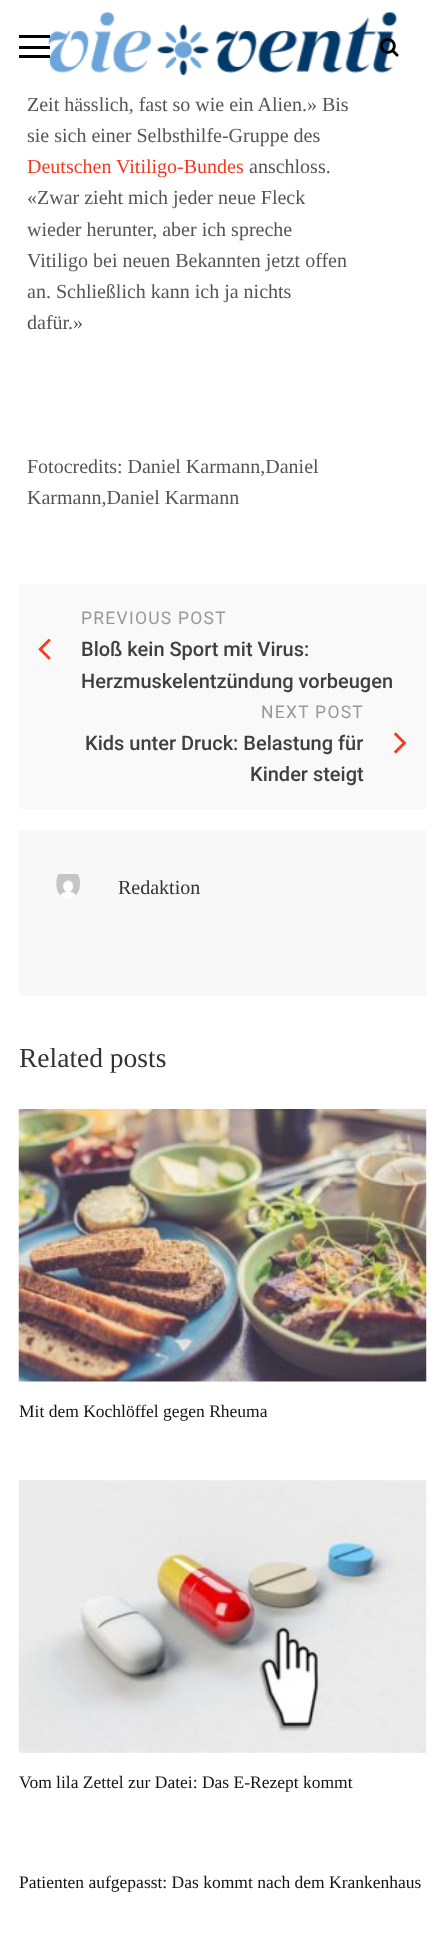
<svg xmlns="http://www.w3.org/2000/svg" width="445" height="1953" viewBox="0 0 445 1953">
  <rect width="100%" height="100%" fill="rgb(255,255,255)"/>
  <image x="48" y="12" width="349" height="63" href="pic1.png"/>
  <rect x="19" y="46" width="31" height="3" fill="rgb(0,0,0)"/>
  <rect x="19" y="35" width="31" height="3" fill="rgb(0,0,0)"/>
  <rect x="19" y="55" width="31" height="3" fill="rgb(0,0,0)"/>
  <image x="380" y="38" width="19" height="19" href="pic2.png"/>
  <g font-family="Liberation Serif" font-size="20" fill="rgb(85,85,85)">
    <text>
      <tspan x="27" y="111">Zeit hässlich, fast so wie ein Alien.» Bis</tspan>
      <tspan x="27" y="142">sie sich einer Selbsthilfe-Gruppe des</tspan>
    </text>
  </g>
  <text x="27" y="173" font-family="Liberation Serif" font-size="20" fill="rgb(243,58,34)">Deutschen Vitiligo-Bundes</text>
  <g font-family="Liberation Serif" font-size="20" fill="rgb(85,85,85)">
    <text x="249" y="173">anschloss.</text>
    <text>
      <tspan x="27" y="204">«Zwar zieht mich jeder neue Fleck</tspan>
      <tspan x="27" y="236">wieder herunter, aber ich spreche</tspan>
      <tspan x="27" y="267">Vitiligo bei neuen Bekannten jetzt offen</tspan>
      <tspan x="27" y="298">an. Schließlich kann ich ja nichts</tspan>
      <tspan x="27" y="329">dafür.»</tspan>
    </text>
    <text>
      <tspan x="27" y="473">Fotocredits: Daniel Karmann,Daniel</tspan>
      <tspan x="27" y="504">Karmann,Daniel Karmann</tspan>
    </text>
  </g>
  <rect x="19" y="584" width="407" height="225" fill="rgb(249,249,249)"/>
  <image x="38" y="638" width="13" height="22" href="pic3.png"/>
  <text x="81" y="624" font-family="Roboto" font-size="17.5" letter-spacing="1.25" fill="rgb(153,153,153)">PREVIOUS POST</text>
  <g font-family="Roboto" font-size="20" font-weight="500" fill="rgb(63,63,63)">
    <text>
      <tspan x="81" y="656">Bloß kein Sport mit Virus:</tspan>
      <tspan x="81" y="688">Herzmuskelentzündung vorbeugen</tspan>
    </text>
  </g>
  <text x="261" y="718" font-family="Roboto" font-size="17.5" letter-spacing="1.25" fill="rgb(153,153,153)">NEXT POST</text>
  <g font-family="Roboto" font-size="20" font-weight="500" fill="rgb(63,63,63)">
    <text x="85" y="750">Kids unter Druck: Belastung für</text>
    <text x="250" y="781">Kinder steigt</text>
  </g>
  <image x="394" y="732" width="13" height="22" href="pic4.png"/>
  <rect x="19" y="830" width="407" height="166" fill="rgb(248,248,248)"/>
  <image x="56" y="874" width="24" height="24" href="pic5.png"/>
  <text x="118" y="894" font-family="Liberation Serif" font-size="20" fill="rgb(51,51,51)">Redaktion</text>
  <text x="19" y="1067" font-family="Liberation Serif" font-size="27.5" fill="rgb(51,51,51)">Related posts</text>
  <image x="18" y="1109" width="409" height="273" href="pic6.png"/>
  <text x="19" y="1417" font-family="Liberation Serif" font-size="17.5" fill="rgb(19,19,19)">Mit dem Kochlöffel gegen Rheuma</text>
  <image x="18" y="1480" width="409" height="273" href="pic7.png"/>
  <g font-family="Liberation Serif" font-size="17.5" fill="rgb(19,19,19)">
    <text x="19" y="1788">Vom lila Zettel zur Datei: Das E-Rezept kommt</text>
    <text x="19" y="1888">Patienten aufgepasst: Das kommt nach dem Krankenhaus</text>
  </g>
</svg>
